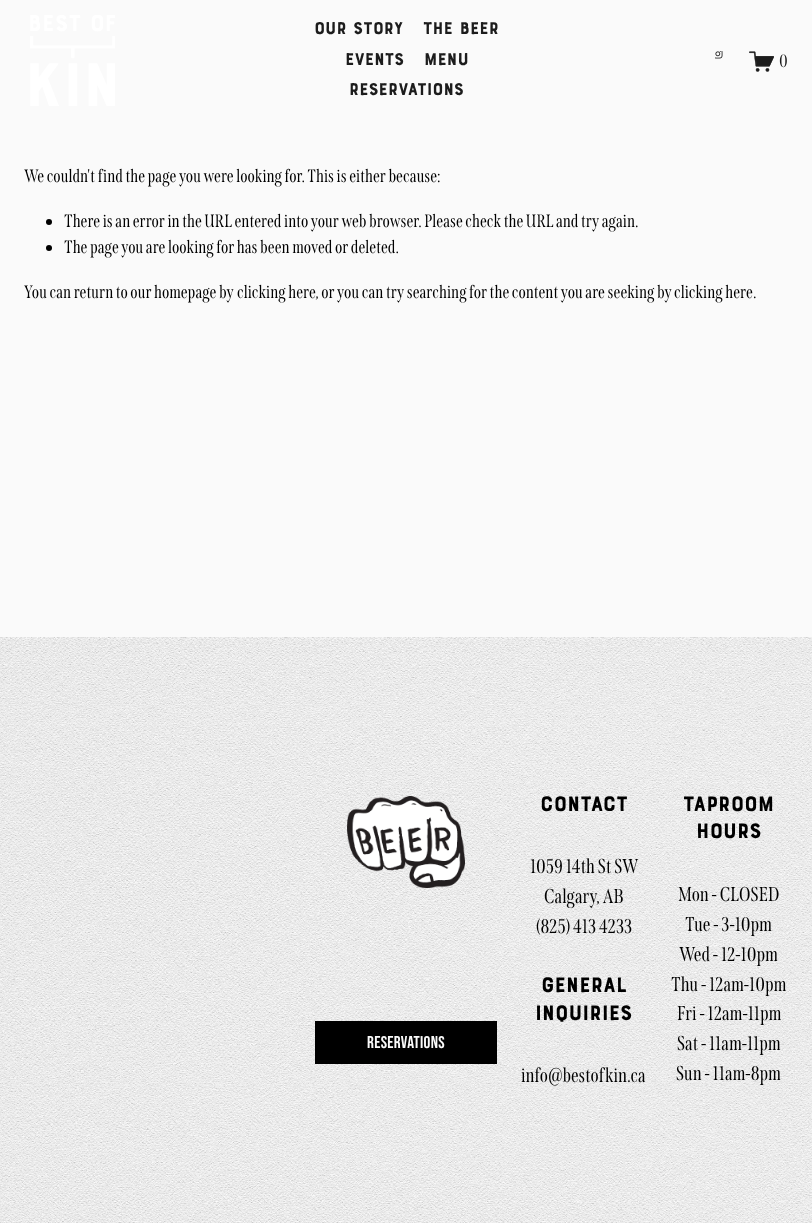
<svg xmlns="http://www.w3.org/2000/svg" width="812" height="1223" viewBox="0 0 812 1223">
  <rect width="100%" height="100%" fill="rgb(250,250,250)"/>
  <image x="30" y="15" width="85" height="91" href="pic1.png"/>
  <g font-family="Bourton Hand" font-size="17.95" fill="rgb(28,28,28)">
    <text x="314" y="34">Our Story</text>
    <text x="423" y="34">The Beer</text>
    <text x="345" y="65">Events</text>
    <text x="424" y="65">Menu</text>
    <text x="349" y="95">Reservations</text>
  </g>
  <image x="715" y="51" width="8" height="8" href="pic2.png"/>
  <image x="749" y="51" width="25" height="21" href="pic3.png"/>
  <text x="779" y="67" font-family="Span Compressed" font-size="17.95" fill="rgb(28,28,28)">0</text>
  <text x="24" y="182" font-family="Span Compressed" font-size="17.95" fill="rgb(0,0,0)">We couldn't find the page you were looking for. This is either because:</text>
  <circle cx="49" cy="222" r="3" fill="rgb(0,0,0)"/>
  <text x="64" y="227" font-family="Span Compressed" font-size="17.95" fill="rgb(0,0,0)">There is an error in the URL entered into your web browser. Please check the URL and try again.</text>
  <circle cx="49" cy="248" r="3" fill="rgb(0,0,0)"/>
  <g font-family="Span Compressed" font-size="17.95" fill="rgb(0,0,0)">
    <text x="64" y="253">The page you are looking for has been moved or deleted.</text>
    <text x="24" y="298">You can return to our homepage by</text>
    <text x="237" y="298">clicking here</text>
    <text x="315" y="298">, or you can try searching for the content you are seeking by</text>
    <text x="674" y="298">clicking here</text>
    <text x="753" y="298">.</text>
  </g>
  <image x="0" y="637" width="812" height="586" href="pic4.png"/>
  <image x="347" y="796" width="118" height="92" href="pic5.png"/>
  <text x="540" y="811" font-family="Bourton Hand" font-size="22" fill="rgb(0,0,0)">CONTACT</text>
  <g font-family="Span Compressed" font-size="20" fill="rgb(0,0,0)">
    <text x="530" y="873">1059 14th St SW</text>
    <text x="544" y="903">Calgary, AB</text>
    <text x="536" y="933">(825) 413 4233</text>
  </g>
  <g font-family="Bourton Hand" font-size="22" fill="rgb(0,0,0)">
    <text x="541" y="992">general</text>
    <text x="535" y="1020">inquiries</text>
  </g>
  <text x="521" y="1082" font-family="Span Compressed" font-size="20" fill="rgb(0,0,0)">info@bestofkin.ca</text>
  <g font-family="Bourton Hand" font-size="22" fill="rgb(0,0,0)">
    <text x="683" y="811">taproom</text>
    <text x="696" y="838">hours</text>
  </g>
  <g font-family="Span Compressed" font-size="20" fill="rgb(0,0,0)">
    <text x="678" y="901">Mon - CLOSED</text>
    <text x="685" y="931">Tue - 3-10pm</text>
    <text x="679" y="961">Wed - 12-10pm</text>
    <text x="671" y="991">Thu - 12am-10pm</text>
    <text>
      <tspan x="677" y="1020">Fri - 12am-11pm</tspan>
      <tspan x="677" y="1050">Sat - 11am-11pm</tspan>
    </text>
    <text x="676" y="1080">Sun - 11am-8pm</text>
  </g>
  <rect x="315" y="1021" width="182" height="43" fill="rgb(0,0,0)"/>
  <text x="367" y="1048" font-family="Bebas Neue" font-size="17" letter-spacing="0.3" fill="rgb(250,250,250)">RESERVATIONS</text>
</svg>
